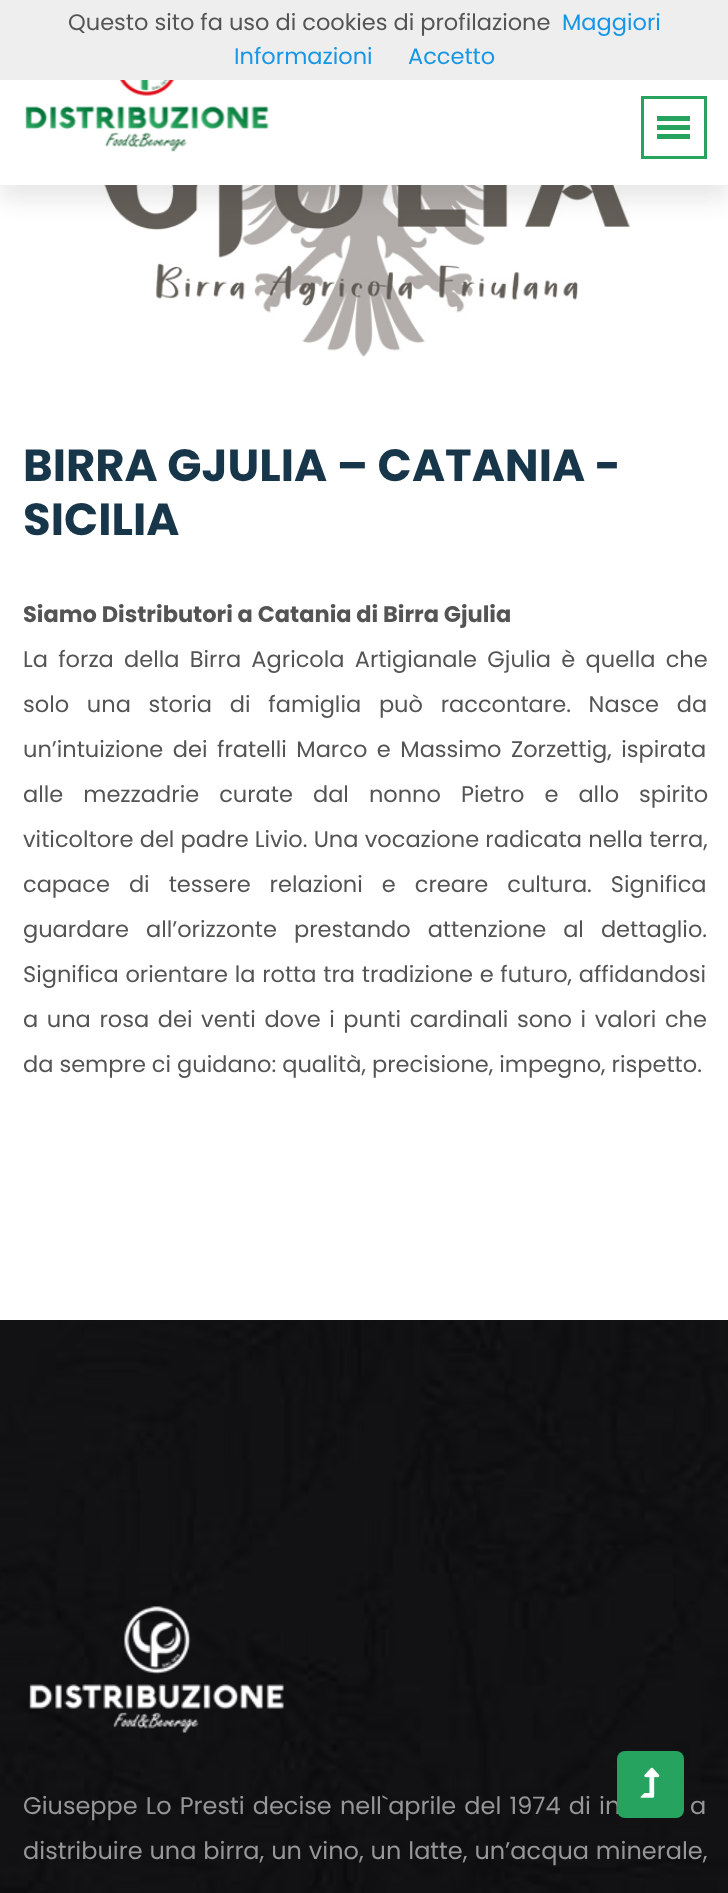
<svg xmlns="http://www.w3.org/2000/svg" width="728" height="1893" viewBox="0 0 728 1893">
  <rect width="100%" height="100%" fill="rgb(255,255,255)"/>
  <image x="99" y="185" width="531" height="172" href="pic2.png"/>
  <rect x="0" y="15" width="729" height="185" fill="rgba(25,25,25,0.1)" filter="blur(11px)"/>
  <rect x="0" y="80" width="728" height="105" fill="rgb(255,255,255)"/>
  <image x="25" y="80" width="244" height="72" href="pic1.png"/>
  <rect x="642.5" y="97.5" width="63" height="60" fill="none" stroke="rgb(38,163,95)" stroke-width="3"/>
  <rect x="657" y="116" width="33" height="5" fill="rgb(38,163,95)"/>
  <rect x="657" y="125" width="33" height="5" fill="rgb(38,163,95)"/>
  <rect x="657" y="134" width="33" height="5" fill="rgb(38,163,95)"/>
  <rect x="0" y="0" width="728" height="80" fill="rgb(238,238,238)"/>
  <text x="68" y="30" font-family="Poppins" font-size="22.5" fill="rgb(84,84,84)">Questo sito fa uso di cookies di profilazione</text>
  <g font-family="Poppins" font-size="22.5" fill="rgb(22,150,231)">
    <text x="562" y="30">Maggiori</text>
    <text x="234" y="64">Informazioni</text>
    <text x="408" y="64">Accetto</text>
  </g>
  <g font-family="Poppins" font-size="45" font-weight="bold" fill="rgb(24,54,74)">
    <text>
      <tspan x="23" y="481">BIRRA GJULIA – CATANIA -</tspan>
      <tspan x="23" y="535">SICILIA</tspan>
    </text>
  </g>
  <text x="23" y="622" font-family="Poppins" font-size="22.5" font-weight="bold" fill="rgb(84,84,84)">Siamo Distributori a Catania di Birra Gjulia</text>
  <g font-family="Poppins" font-size="22.5" fill="rgb(84,84,84)">
    <text x="23" y="667" word-spacing="4.25">La forza della Birra Agricola Artigianale Gjulia è quella che</text>
    <text x="23" y="712" word-spacing="11.75">solo una storia di famiglia può raccontare. Nasce da</text>
    <text x="23" y="757" word-spacing="3.5">un’intuizione dei fratelli Marco e Massimo Zorzettig, ispirata</text>
    <text x="23" y="802" word-spacing="14">alle mezzadrie curate dal nonno Pietro e allo spirito</text>
    <text x="23" y="847" word-spacing="0.25">viticoltore del padre Livio. Una vocazione radicata nella terra,</text>
    <text x="23" y="892" word-spacing="13">capace di tessere relazioni e creare cultura. Significa</text>
    <text x="23" y="937" word-spacing="11">guardare all’orizzonte prestando attenzione al dettaglio.</text>
    <text x="23" y="982" word-spacing="0.75">Significa orientare la rotta tra tradizione e futuro, affidandosi</text>
    <text x="23" y="1027" word-spacing="2.6">a una rosa dei venti dove i punti cardinali sono i valori che</text>
    <text x="23" y="1072">da sempre ci guidano: qualità, precisione, impegno, rispetto.</text>
  </g>
  <image x="0" y="1320" width="728" height="573" href="pic4.png"/>
  <text x="23" y="1814" word-spacing="1.75" font-family="Poppins" font-size="24" fill="rgb(150,150,150)">Giuseppe Lo Presti decise nell`aprile del 1974 di in</text>
  <rect x="617" y="1751" width="67" height="67" rx="8" fill="rgb(38,163,95)"/>
  <image x="640" y="1767" width="20" height="31" href="pic3.png"/>
  <image x="29" y="1606" width="255" height="127" href="pic5.png"/>
  <g font-family="Poppins" font-size="24" fill="rgb(150,150,150)">
    <text x="690" y="1814" word-spacing="1.75">a</text>
    <text x="23" y="1859" word-spacing="0.5">distribuire una birra, un vino, un latte, un’acqua minerale,</text>
  </g>
</svg>
